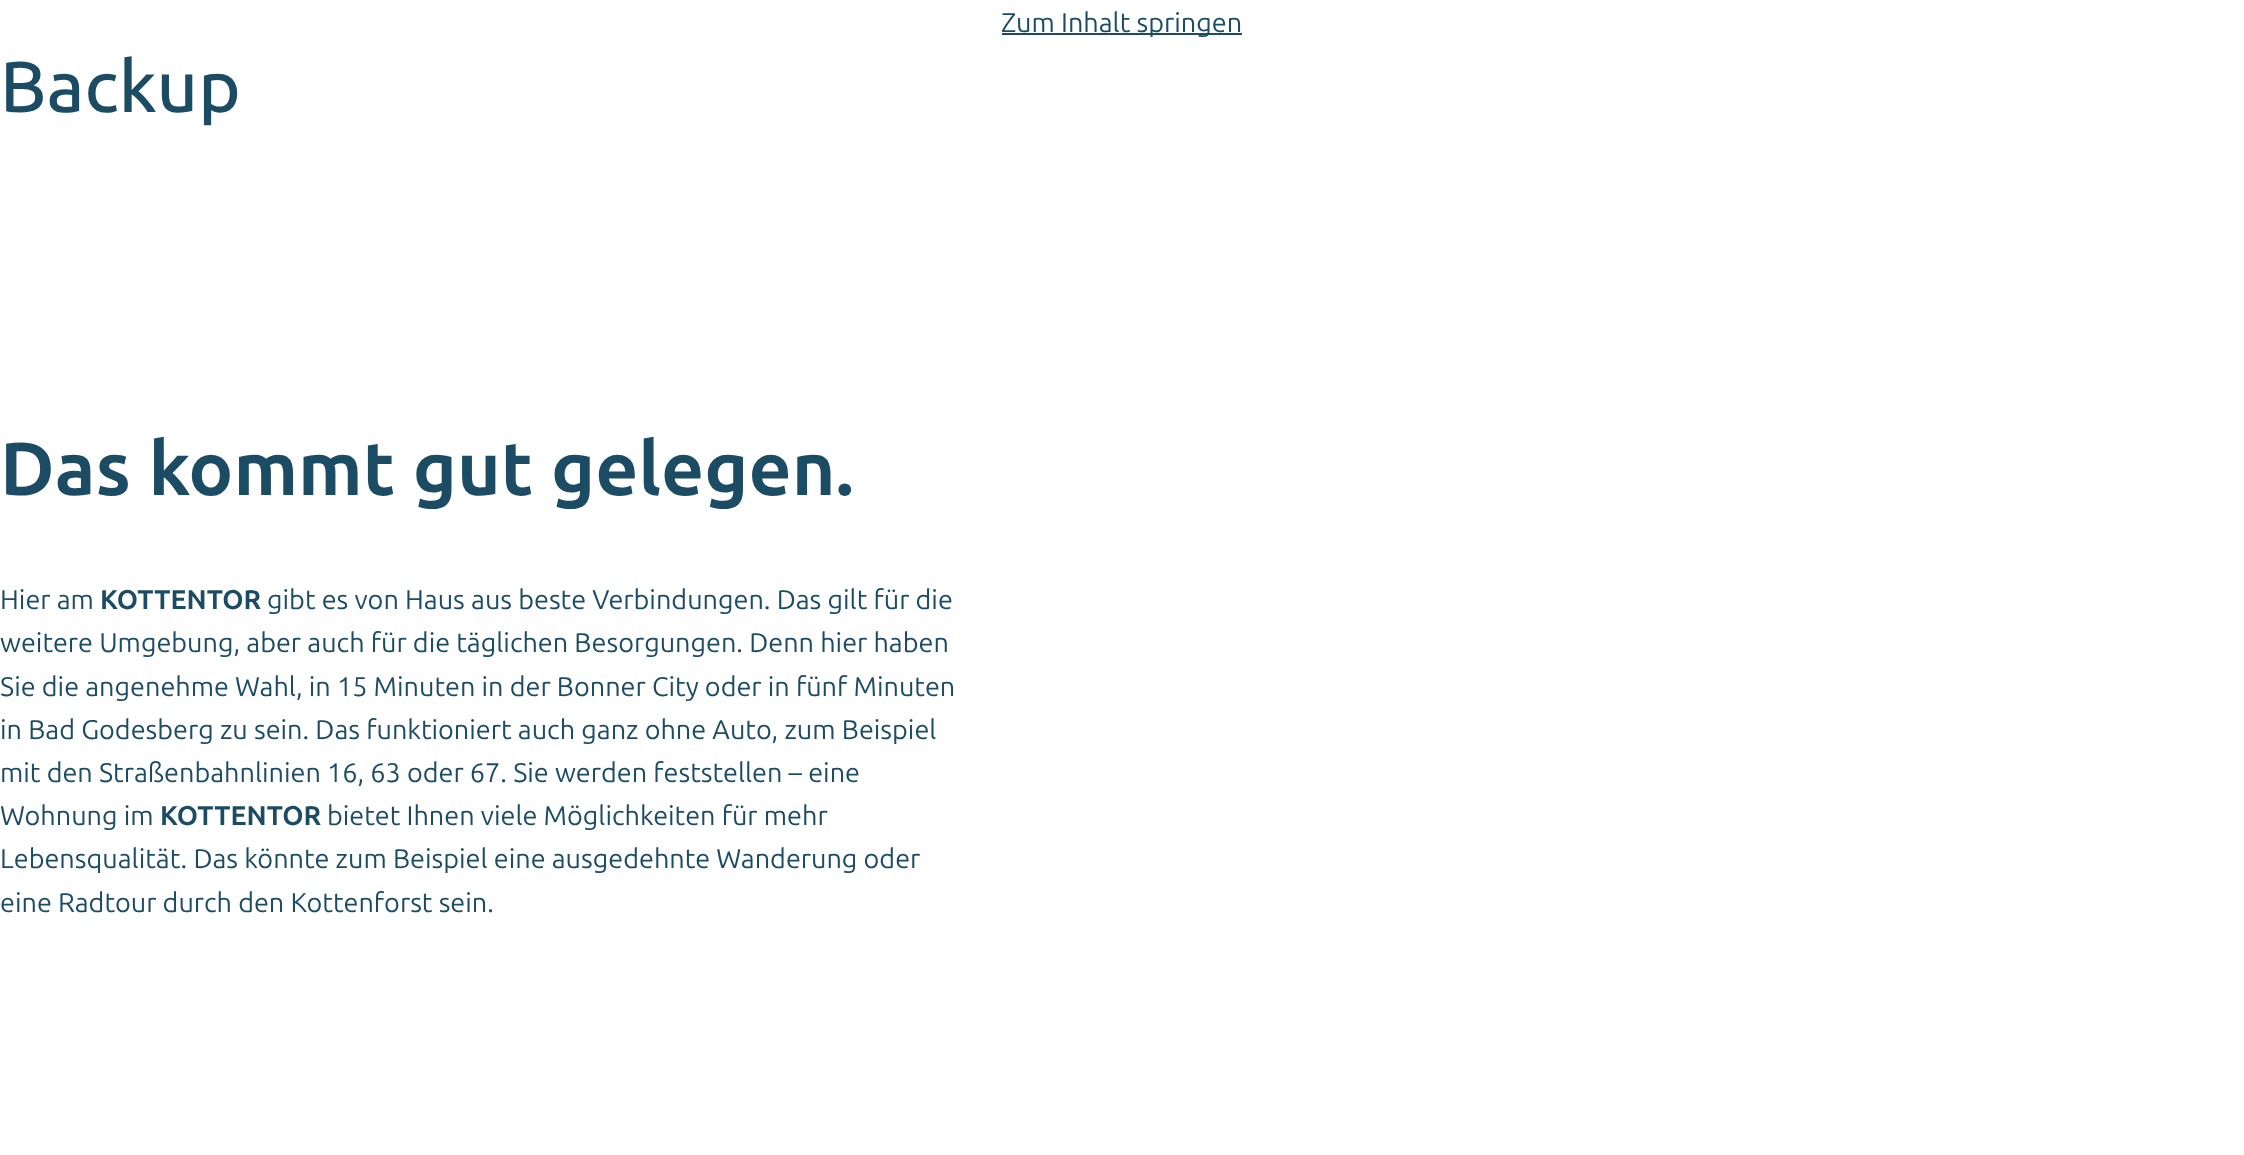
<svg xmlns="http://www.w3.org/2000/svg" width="2244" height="1155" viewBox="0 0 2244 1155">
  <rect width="100%" height="100%" fill="rgb(255,255,255)"/>
  <rect x="1002" y="33" width="240" height="2" fill="rgb(28,76,99)"/>
  <text x="1001" y="32" font-family="Ubuntu" font-size="27" fill="rgb(28,76,99)">Zum Inhalt springen</text>
  <text x="0" y="112" font-family="Ubuntu" font-size="72" font-weight="500" fill="rgb(28,76,99)">Backup</text>
  <text x="0" y="495" font-family="Ubuntu" font-size="75" font-weight="bold" fill="rgb(28,76,99)">Das kommt gut gelegen.</text>
  <text x="0" y="609" font-family="Ubuntu" font-size="27" fill="rgb(28,76,99)">Hier am</text>
  <text x="100" y="609" font-family="Ubuntu" font-size="27" font-weight="bold" fill="rgb(28,76,99)">KOTTENTOR</text>
  <g font-family="Ubuntu" font-size="27" fill="rgb(28,76,99)">
    <text x="267" y="609">gibt es von Haus aus beste Verbindungen. Das gilt für die</text>
    <text>
      <tspan x="0" y="652">weitere Umgebung, aber auch für die täglichen Besorgungen. Denn hier haben</tspan>
      <tspan x="0" y="696">Sie die angenehme Wahl, in 15 Minuten in der Bonner City oder in fünf Minuten</tspan>
      <tspan x="0" y="739">in Bad Godesberg zu sein. Das funktioniert auch ganz ohne Auto, zum Beispiel</tspan>
      <tspan x="0" y="782">mit den Straßenbahnlinien 16, 63 oder 67. Sie werden feststellen – eine</tspan>
      <tspan x="0" y="825">Wohnung im</tspan>
    </text>
  </g>
  <text x="160" y="825" font-family="Ubuntu" font-size="27" font-weight="bold" fill="rgb(28,76,99)">KOTTENTOR</text>
  <g font-family="Ubuntu" font-size="27" fill="rgb(28,76,99)">
    <text x="327" y="825">bietet Ihnen viele Möglichkeiten für mehr</text>
    <text>
      <tspan x="0" y="868">Lebensqualität. Das könnte zum Beispiel eine ausgedehnte Wanderung oder</tspan>
      <tspan x="0" y="912">eine Radtour durch den Kottenforst sein.</tspan>
    </text>
  </g>
</svg>
